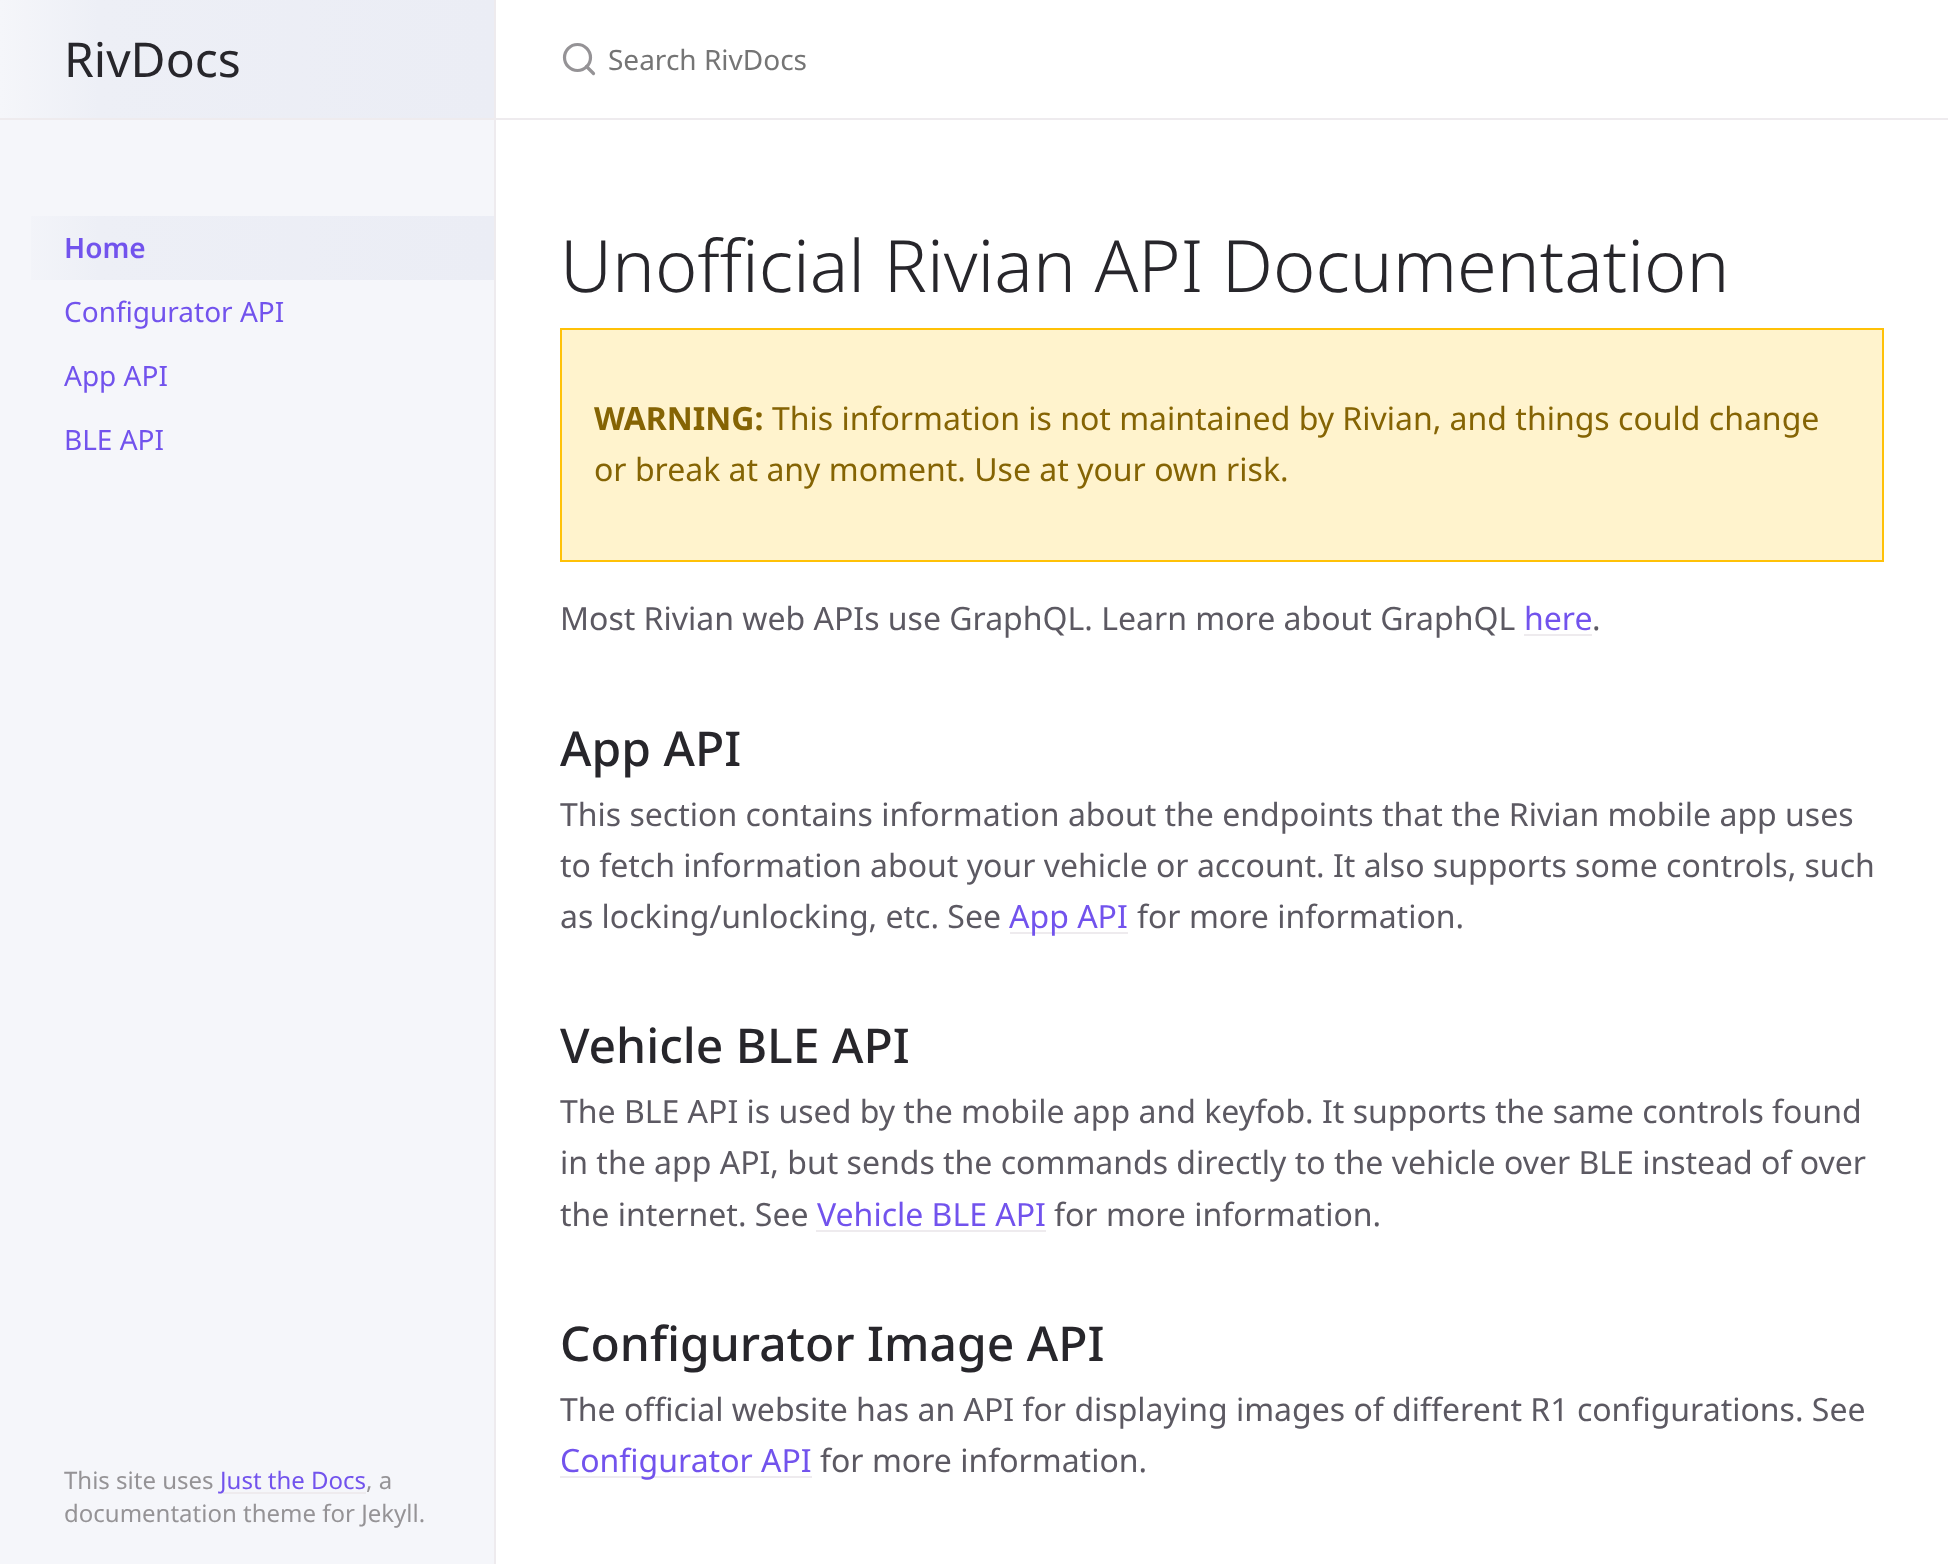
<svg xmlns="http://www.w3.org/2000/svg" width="1948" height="1564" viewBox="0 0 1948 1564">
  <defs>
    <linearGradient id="g1" gradientUnits="userSpaceOnUse" x1="494" y1="59" x2="0" y2="59"><stop offset="0" stop-color="rgb(235,237,245)"/><stop offset="0.8" stop-color="rgb(237,239,246)"/><stop offset="1" stop-color="rgb(245,246,250)"/></linearGradient>
    <linearGradient id="g2" gradientUnits="userSpaceOnUse" x1="494" y1="248" x2="0" y2="248"><stop offset="0" stop-color="rgb(235,237,245)"/><stop offset="0.8" stop-color="rgb(237,239,246)"/><stop offset="1" stop-color="rgb(245,246,250)"/></linearGradient>
  </defs>
  <rect width="100%" height="100%" fill="rgb(255,255,255)"/>
  <rect x="0" y="120" width="494" height="1444" fill="rgb(245,246,250)"/>
  <rect x="494" y="0" width="2" height="1564" fill="rgb(238,235,238)"/>
  <rect x="0" y="118" width="494" height="2" fill="rgb(238,235,238)"/>
  <rect x="0" y="0" width="494" height="118" fill="url(#g1)"/>
  <text x="64" y="77" font-family="Noto Sans" font-size="48" fill="rgb(39,38,43)">RivDocs</text>
  <rect x="31" y="216" width="463" height="64" fill="url(#g2)"/>
  <text x="64" y="258" font-family="Noto Sans" font-size="28" font-weight="600" fill="rgb(114,83,237)">Home</text>
  <g font-family="Noto Sans" font-size="28" fill="rgb(114,83,237)">
    <text x="64" y="322">Configurator API</text>
    <text x="64" y="386">App API</text>
    <text x="64" y="450">BLE API</text>
  </g>
  <text x="64" y="1489" font-family="Noto Sans" font-size="24" fill="rgb(149,147,150)">This site uses</text>
  <rect x="220" y="1492" width="146" height="2" fill="rgb(238,235,238)"/>
  <text x="220" y="1489" font-family="Noto Sans" font-size="24" fill="rgb(114,83,237)">Just the Docs</text>
  <g font-family="Noto Sans" font-size="24" fill="rgb(149,147,150)">
    <text x="366" y="1489">, a</text>
    <text x="64" y="1522">documentation theme for Jekyll.</text>
  </g>
  <rect x="496" y="118" width="1452" height="2" fill="rgb(238,235,238)"/>
  <circle cx="577.5" cy="57.5" r="13" fill="none" stroke="rgb(149,147,150)" stroke-width="3.2"/>
  <path d="M593.5 73.5L586.5 66.5" fill="none" stroke="rgb(149,147,150)" stroke-width="3.2" stroke-linecap="round" stroke-linejoin="round"/>
  <text x="608" y="70" font-family="Noto Sans" font-size="28" fill="rgb(117,117,117)">Search RivDocs</text>
  <text x="560" y="292" font-family="Noto Sans" font-size="72" font-weight="300" fill="rgb(39,38,43)">Unofficial Rivian API Documentation</text>
  <rect x="561" y="329" width="1322" height="232" fill="rgb(255,243,205)" stroke="rgb(255,193,7)" stroke-width="2"/>
  <text x="594" y="430" font-family="Noto Sans" font-size="32" font-weight="bold" fill="rgb(133,100,4)">WARNING:</text>
  <g font-family="Noto Sans" font-size="32" fill="rgb(133,100,4)">
    <text x="772" y="430">This information is not maintained by Rivian, and things could change</text>
    <text x="594" y="481">or break at any moment. Use at your own risk.</text>
  </g>
  <text x="560" y="630" font-family="Noto Sans" font-size="32" fill="rgb(92,89,98)">Most Rivian web APIs use GraphQL. Learn more about GraphQL</text>
  <text x="1524" y="630" font-family="Noto Sans" font-size="32" fill="rgb(114,83,237)">here</text>
  <rect x="1524" y="634" width="68" height="2" fill="rgb(238,235,238)"/>
  <text x="1592" y="630" font-family="Noto Sans" font-size="32" fill="rgb(92,89,98)">.</text>
  <text x="560" y="766" font-family="Noto Sans" font-size="48" font-weight="500" fill="rgb(39,38,43)">App API</text>
  <g font-family="Noto Sans" font-size="32" fill="rgb(92,89,98)">
    <text>
      <tspan x="560" y="826">This section contains information about the endpoints that the Rivian mobile app uses</tspan>
      <tspan x="560" y="877">to fetch information about your vehicle or account. It also supports some controls, such</tspan>
      <tspan x="560" y="928">as locking/unlocking, etc. See</tspan>
    </text>
  </g>
  <rect x="1010" y="932" width="118" height="2" fill="rgb(238,235,238)"/>
  <text x="1009" y="928" font-family="Noto Sans" font-size="32" fill="rgb(114,83,237)">App API</text>
  <text x="1137" y="928" font-family="Noto Sans" font-size="32" fill="rgb(92,89,98)">for more information.</text>
  <text x="560" y="1063" font-family="Noto Sans" font-size="48" font-weight="500" fill="rgb(39,38,43)">Vehicle BLE API</text>
  <g font-family="Noto Sans" font-size="32" fill="rgb(92,89,98)">
    <text>
      <tspan x="560" y="1123">The BLE API is used by the mobile app and keyfob. It supports the same controls found</tspan>
      <tspan x="560" y="1174">in the app API, but sends the commands directly to the vehicle over BLE instead of over</tspan>
      <tspan x="560" y="1226">the internet. See</tspan>
    </text>
  </g>
  <text x="817" y="1226" font-family="Noto Sans" font-size="32" fill="rgb(114,83,237)">Vehicle BLE API</text>
  <rect x="816" y="1230" width="230" height="2" fill="rgb(238,235,238)"/>
  <text x="1054" y="1226" font-family="Noto Sans" font-size="32" fill="rgb(92,89,98)">for more information.</text>
  <text x="560" y="1361" font-family="Noto Sans" font-size="48" font-weight="500" fill="rgb(39,38,43)">Configurator Image API</text>
  <text x="560" y="1421" font-family="Noto Sans" font-size="32" fill="rgb(92,89,98)">The official website has an API for displaying images of different R1 configurations. See</text>
  <rect x="560" y="1476" width="252" height="2" fill="rgb(238,235,238)"/>
  <text x="560" y="1472" font-family="Noto Sans" font-size="32" fill="rgb(114,83,237)">Configurator API</text>
  <text x="820" y="1472" font-family="Noto Sans" font-size="32" fill="rgb(92,89,98)">for more information.</text>
</svg>
